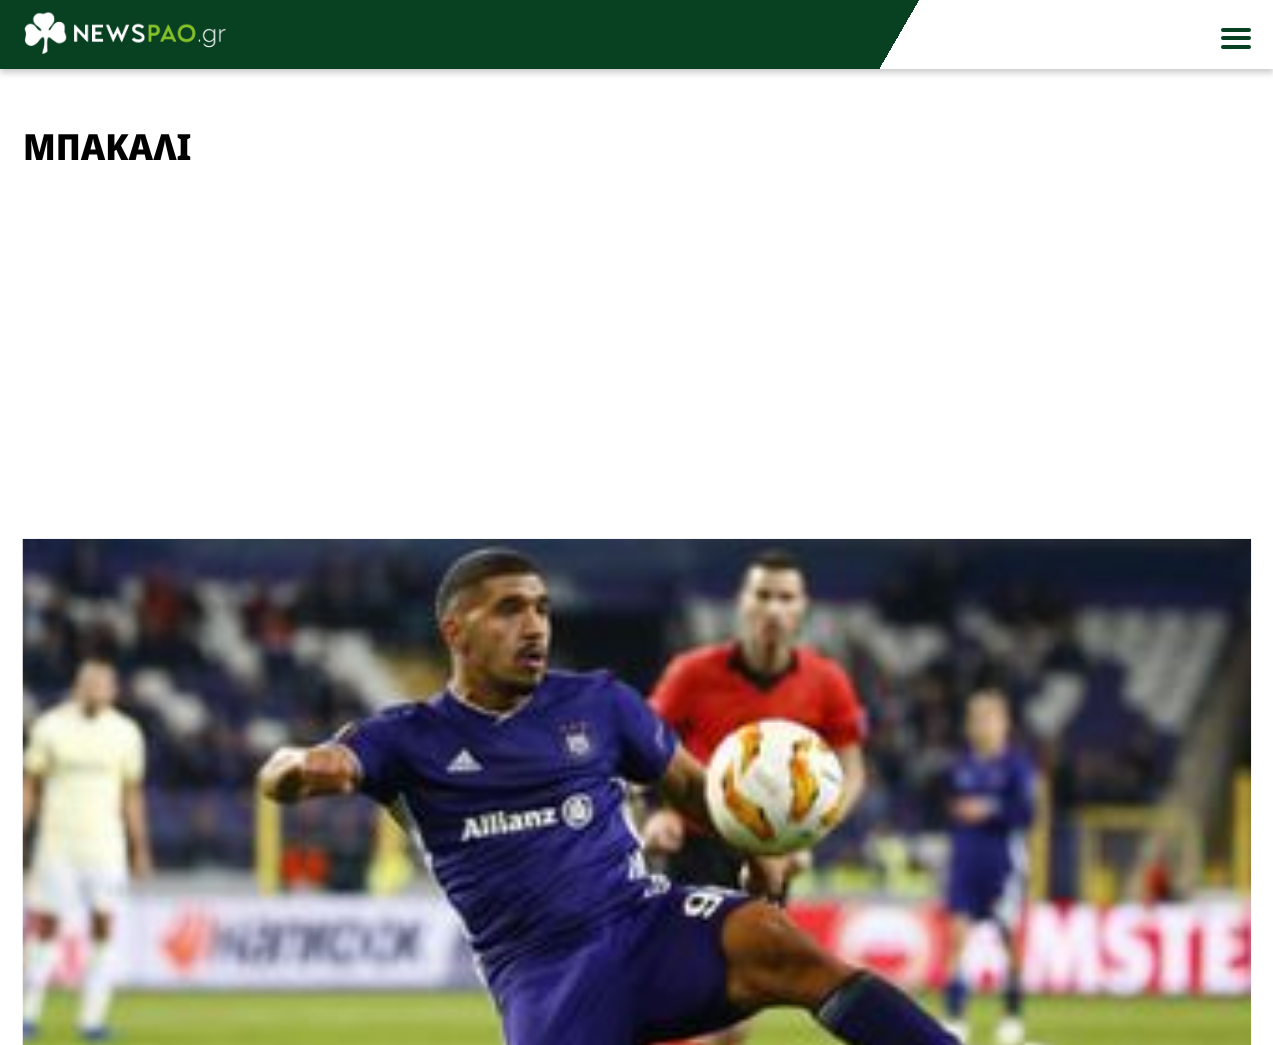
<svg xmlns="http://www.w3.org/2000/svg" width="1273" height="1045" viewBox="0 0 1273 1045">
  <defs>
    <linearGradient id="g1" gradientUnits="userSpaceOnUse" x1="144" y1="-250" x2="1129" y2="319"><stop offset="0.7" stop-color="rgb(8,64,34)"/><stop offset="0.7" stop-color="rgb(255,255,255)"/></linearGradient>
  </defs>
  <rect width="100%" height="100%" fill="rgb(255,255,255)"/>
  <rect x="0" y="4" width="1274" height="69" fill="rgba(0,0,0,0.2)" filter="blur(3px)"/>
  <rect x="0" y="0" width="1273" height="69" fill="url(#g1)"/>
  <image x="24" y="11" width="202" height="44" href="pic1.png"/>
  <rect x="1221" y="28" width="30" height="4" rx="2" fill="rgb(8,64,34)"/>
  <rect x="1221" y="36" width="30" height="4" rx="2" fill="rgb(8,64,34)"/>
  <rect x="1221" y="45" width="30" height="4" rx="2" fill="rgb(8,64,34)"/>
  <text x="23" y="160" font-family="Noto Sans Display" font-size="36" font-weight="800" fill="rgb(0,0,0)">ΜΠΑΚΑΛΙ</text>
  <image x="22" y="538" width="1230" height="507" href="pic2.png"/>
</svg>
